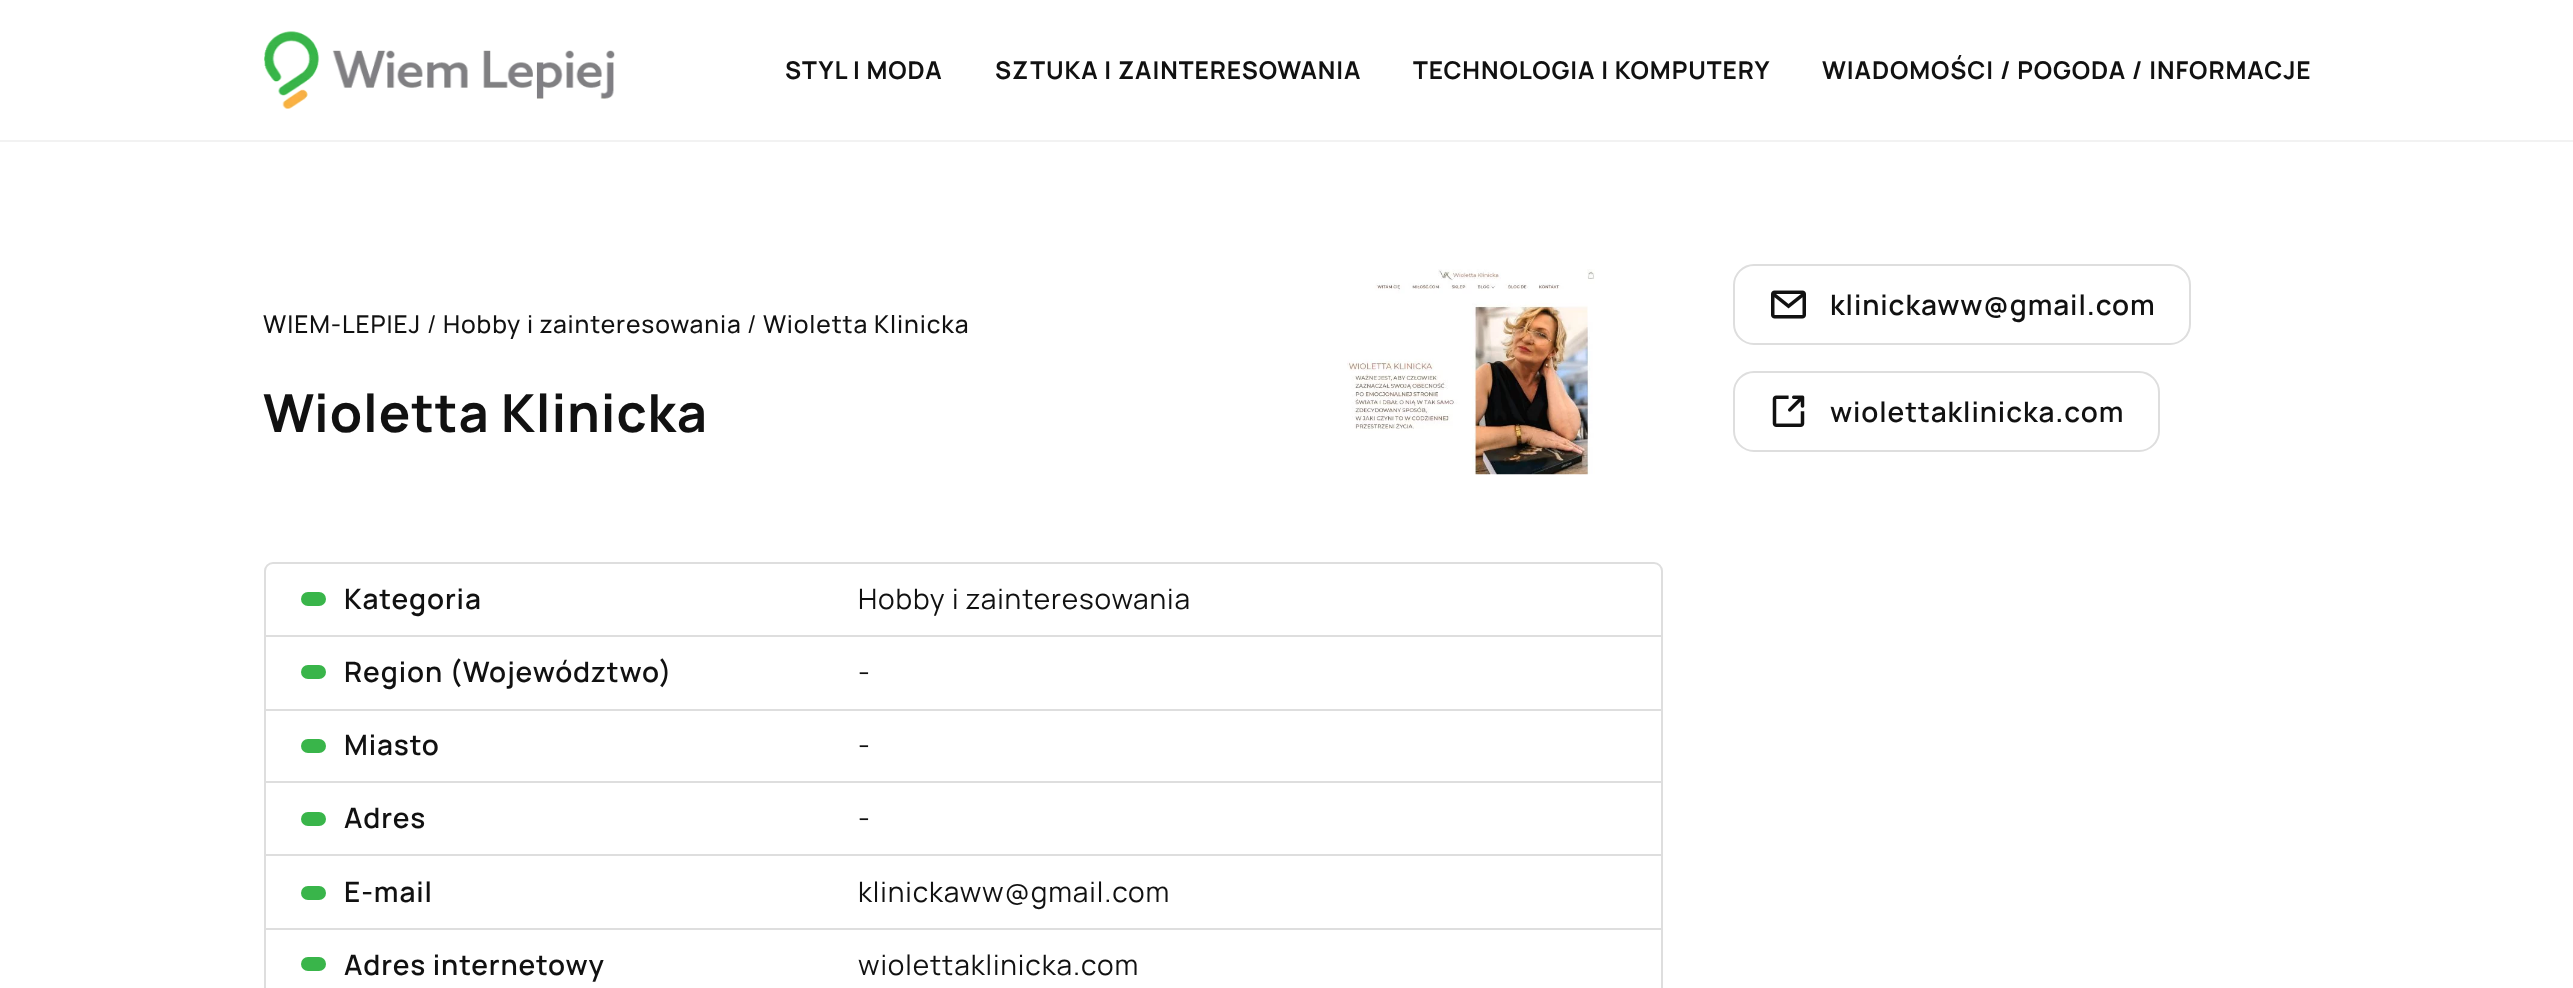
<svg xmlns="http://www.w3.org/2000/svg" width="2573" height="988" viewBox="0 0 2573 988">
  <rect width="100%" height="100%" fill="rgb(255,255,255)"/>
  <rect x="0" y="140" width="2573" height="2" fill="rgb(242,242,242)"/>
  <image x="264" y="31" width="351" height="78" href="pic1.png"/>
  <g font-family="Manrope" font-size="24.5" font-weight="bold" letter-spacing="0.9" fill="rgb(17,17,17)">
    <text x="785" y="79">STYL I MODA</text>
    <text x="995" y="79">SZTUKA I ZAINTERESOWANIA</text>
    <text x="1413" y="79">TECHNOLOGIA I KOMPUTERY</text>
    <text x="1822" y="79">WIADOMOŚCI / POGODA / INFORMACJE</text>
  </g>
  <text x="263" y="333" font-family="Manrope" font-size="24.5" font-weight="500" letter-spacing="0.9" fill="rgb(17,17,17)">WIEM-LEPIEJ</text>
  <text x="427" y="333" font-family="Manrope" font-size="24.5" letter-spacing="0.9" fill="rgb(17,17,17)">/</text>
  <text x="443" y="333" font-family="Manrope" font-size="24.5" font-weight="500" letter-spacing="0.9" fill="rgb(17,17,17)">Hobby i zainteresowania</text>
  <text x="747" y="333" font-family="Manrope" font-size="24.5" letter-spacing="0.9" fill="rgb(17,17,17)">/</text>
  <text x="763" y="333" font-family="Manrope" font-size="24.5" font-weight="500" letter-spacing="0.9" fill="rgb(17,17,17)">Wioletta Klinicka</text>
  <text x="263" y="432" font-family="Manrope" font-size="52.5" font-weight="bold" letter-spacing="0.9" fill="rgb(17,17,17)">Wioletta Klinicka</text>
  <image x="1347" y="269" width="248" height="206" href="pic2.png"/>
  <rect x="265" y="563" width="1397" height="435" rx="8" fill="none" stroke="rgb(222,222,222)" stroke-width="2"/>
  <rect x="266" y="635" width="1395" height="2" fill="rgb(222,222,222)"/>
  <rect x="301" y="592" width="25" height="14" rx="7" fill="rgb(57,181,74)"/>
  <text x="344" y="609" font-family="Manrope" font-size="28" font-weight="600" letter-spacing="0.9" fill="rgb(17,17,17)">Kategoria</text>
  <text x="858" y="609" font-family="Manrope" font-size="28" letter-spacing="0.9" fill="rgb(17,17,17)">Hobby i zainteresowania</text>
  <rect x="266" y="709" width="1395" height="2" fill="rgb(222,222,222)"/>
  <rect x="301" y="665" width="25" height="14" rx="7" fill="rgb(57,181,74)"/>
  <text x="344" y="682" font-family="Manrope" font-size="28" font-weight="600" letter-spacing="0.9" fill="rgb(17,17,17)">Region (Województwo)</text>
  <text x="858" y="682" font-family="Manrope" font-size="28" letter-spacing="0.9" fill="rgb(17,17,17)">-</text>
  <rect x="266" y="781" width="1395" height="2" fill="rgb(222,222,222)"/>
  <rect x="301" y="739" width="25" height="14" rx="7" fill="rgb(57,181,74)"/>
  <text x="344" y="755" font-family="Manrope" font-size="28" font-weight="600" letter-spacing="0.9" fill="rgb(17,17,17)">Miasto</text>
  <text x="858" y="755" font-family="Manrope" font-size="28" letter-spacing="0.9" fill="rgb(17,17,17)">-</text>
  <rect x="266" y="854" width="1395" height="2" fill="rgb(222,222,222)"/>
  <rect x="301" y="812" width="25" height="14" rx="7" fill="rgb(57,181,74)"/>
  <text x="344" y="828" font-family="Manrope" font-size="28" font-weight="600" letter-spacing="0.9" fill="rgb(17,17,17)">Adres</text>
  <text x="858" y="828" font-family="Manrope" font-size="28" letter-spacing="0.9" fill="rgb(17,17,17)">-</text>
  <rect x="266" y="928" width="1395" height="2" fill="rgb(222,222,222)"/>
  <rect x="301" y="886" width="25" height="14" rx="7" fill="rgb(57,181,74)"/>
  <text x="344" y="902" font-family="Manrope" font-size="28" font-weight="600" letter-spacing="0.9" fill="rgb(17,17,17)">E-mail</text>
  <text x="858" y="902" font-family="Manrope" font-size="28" letter-spacing="0.9" fill="rgb(17,17,17)">klinickaww@gmail.com</text>
  <rect x="301" y="957" width="25" height="14" rx="7" fill="rgb(57,181,74)"/>
  <text x="344" y="975" font-family="Manrope" font-size="28" font-weight="600" letter-spacing="0.9" fill="rgb(17,17,17)">Adres internetowy</text>
  <text x="858" y="975" font-family="Manrope" font-size="28" letter-spacing="0.9" fill="rgb(17,17,17)">wiolettaklinicka.com</text>
  <image x="1771" y="290" width="35" height="29" href="pic3.png"/>
  <rect x="1734" y="265" width="456" height="79" rx="20" fill="none" stroke="rgb(222,222,222)" stroke-width="2"/>
  <text x="1830" y="315" font-family="Manrope" font-size="28" font-weight="600" letter-spacing="0.9" fill="rgb(17,17,17)">klinickaww@gmail.com</text>
  <image x="1772" y="395" width="33" height="32" href="pic4.png"/>
  <rect x="1734" y="372" width="425" height="79" rx="20" fill="none" stroke="rgb(222,222,222)" stroke-width="2"/>
  <text x="1830" y="422" font-family="Manrope" font-size="28" font-weight="600" letter-spacing="0.9" fill="rgb(17,17,17)">wiolettaklinicka.com</text>
</svg>
